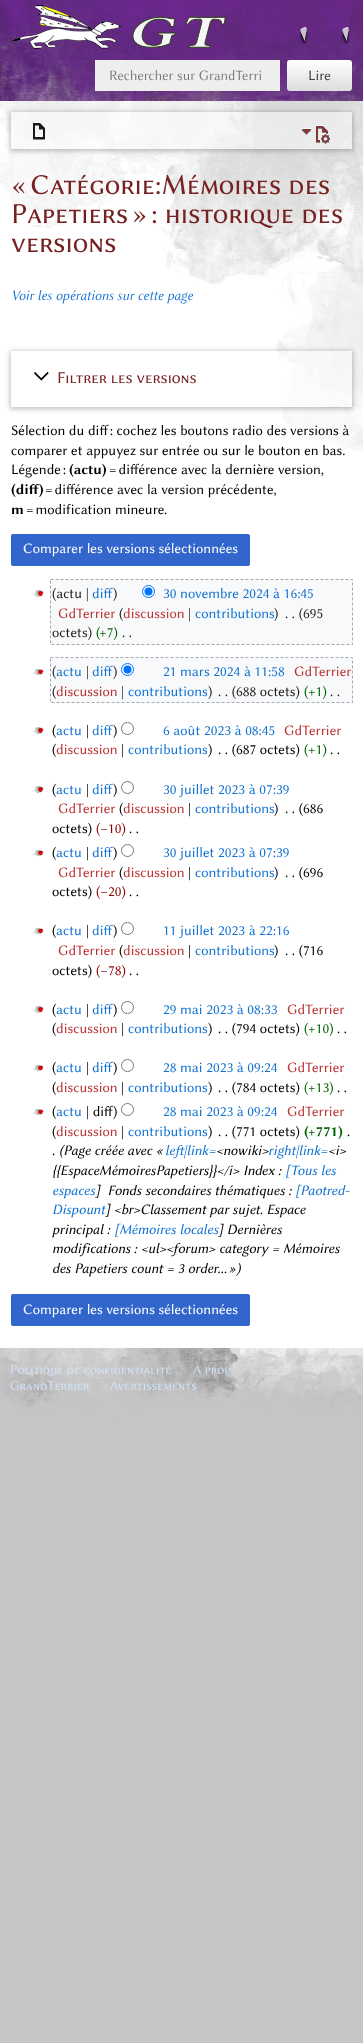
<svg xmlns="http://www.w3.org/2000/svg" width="363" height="2043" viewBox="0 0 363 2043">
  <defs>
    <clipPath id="clip1"><rect x="109" y="67" width="152" height="17"/></clipPath>
    <linearGradient id="g1" gradientUnits="userSpaceOnUse" x1="320" y1="60" x2="320" y2="91"><stop offset="0" stop-color="rgb(255,255,255)"/><stop offset="1" stop-color="rgb(221,221,221)"/></linearGradient>
    <clipPath id="clip2"><path d="M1 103H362V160H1ZM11 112H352V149H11Z" clip-rule="evenodd"/></clipPath>
    <clipPath id="clip3"><path d="M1 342H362V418H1ZM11 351H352V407H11Z" clip-rule="evenodd"/></clipPath>
  </defs>
  <rect width="100%" height="100%" fill="rgb(197,197,197)"/>
  <image x="0" y="0" width="363" height="101" href="pic1.png"/>
  <image x="0" y="1348" width="363" height="73" href="pic2.png"/>
  <image x="0" y="0" width="363" height="101" href="pic3.png"/>
  <image x="11" y="5" width="215" height="44" href="pic4.png"/>
  <image x="299" y="27" width="9" height="18" href="pic5.png"/>
  <image x="341" y="27" width="9" height="18" href="pic6.png"/>
  <rect x="95" y="60" width="185" height="31" fill="rgb(238,238,238)"/>
  <g clip-path="url(#clip1)">
    <text x="109" y="80" font-family="Libertinus Sans" font-size="14.5" font-weight="300" fill="rgb(117,117,117)">Rechercher sur GrandTerri</text>
  </g>
  <rect x="287" y="60" width="65" height="31" rx="3" fill="url(#g1)"/>
  <text x="308" y="80" font-family="Libertinus Sans" font-size="14.5" fill="rgb(68,68,68)">Lire</text>
  <rect x="0" y="101" width="363" height="1247" fill="rgb(255,255,255)"/>
  <image x="0" y="101" width="363" height="352" href="pic7.png"/>
  <g clip-path="url(#clip2)">
    <rect x="10" y="112" width="343" height="39" fill="rgba(0,0,0,0.25)" filter="blur(2.5px)"/>
  </g>
  <rect x="11" y="112" width="341" height="37" fill="rgba(255,255,255,0.45)"/>
  <image x="33" y="122" width="12" height="18" href="pic8.png"/>
  <image x="301" y="128" width="11" height="7" href="pic9.png"/>
  <image x="316" y="125" width="14" height="19" href="pic10.png"/>
  <g font-family="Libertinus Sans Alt" font-size="29" fill="rgb(119,34,34)">
    <text>
      <tspan x="11" y="194">« Catégorie:Mémoires des</tspan>
      <tspan x="11" y="223">Papetiers » : historique des</tspan>
      <tspan x="11" y="252">versions</tspan>
    </text>
  </g>
  <text x="11" y="300" font-family="Libertinus Sans" font-size="14.5" font-style="italic" fill="rgb(19,115,210)">Voir les opérations sur cette page</text>
  <g clip-path="url(#clip3)">
    <rect x="10" y="351" width="343" height="58" fill="rgba(0,0,0,0.25)" filter="blur(2.5px)"/>
  </g>
  <rect x="276" y="351" width="76" height="56" fill="rgba(255,255,255,0.45)"/>
  <image x="33" y="372" width="16" height="9" href="pic11.png"/>
  <text x="57" y="383" font-family="Libertinus Sans Alt" font-size="16.5" fill="rgb(119,34,34)">Filtrer les versions</text>
  <g font-family="Libertinus Sans" font-size="14.5" fill="rgb(0,0,0)">
    <text>
      <tspan x="11" y="435">Sélection du diff : cochez les boutons radio des versions à</tspan>
      <tspan x="11" y="455">comparer et appuyez sur entrée ou sur le bouton en bas.</tspan>
      <tspan x="11" y="474">Légende :</tspan>
    </text>
  </g>
  <text x="69" y="474" font-family="Libertinus Sans" font-size="14.5" font-weight="bold" fill="rgb(0,0,0)">(actu)</text>
  <text x="109" y="474" font-family="Libertinus Sans" font-size="14.5" fill="rgb(0,0,0)">= différence avec la dernière version,</text>
  <text x="11" y="494" font-family="Libertinus Sans" font-size="14.5" font-weight="bold" fill="rgb(0,0,0)">(diff)</text>
  <text x="45" y="494" font-family="Libertinus Sans" font-size="14.5" fill="rgb(0,0,0)">= différence avec la version précédente,</text>
  <text x="11" y="514" font-family="Libertinus Sans" font-size="14.5" font-weight="bold" fill="rgb(0,0,0)">m</text>
  <text x="26" y="514" font-family="Libertinus Sans" font-size="14.5" fill="rgb(0,0,0)">= modification mineure.</text>
  <rect x="11" y="534" width="239" height="32" rx="2" fill="rgb(51,102,204)"/>
  <text x="23" y="553" font-family="Libertinus Sans" font-size="14.5" fill="rgb(255,255,255)">Comparer les versions sélectionnées</text>
  <rect x="51" y="580" width="301" height="64" fill="rgb(248,249,250)"/>
  <image x="33" y="589" width="11" height="9" href="pic12.png"/>
  <text x="52" y="598" font-family="Libertinus Sans" font-size="14.5" fill="rgb(32,33,34)">(actu |</text>
  <text x="92" y="598" font-family="Libertinus Sans" font-size="14.5" fill="rgb(19,115,210)">diff</text>
  <text x="113" y="598" font-family="Libertinus Sans" font-size="14.5" fill="rgb(32,33,34)">)</text>
  <circle cx="148.5" cy="591.5" r="6" fill="rgb(255,255,255)" stroke="rgb(0,117,255)"/>
  <circle cx="148.5" cy="591.5" r="4" fill="rgb(0,117,255)"/>
  <text x="163" y="598" font-family="Libertinus Sans" font-size="14.5" fill="rgb(19,115,210)">30 novembre 2024 à 16:45</text>
  <text x="58" y="618" font-family="Libertinus Sans" font-size="14.5" fill="rgb(187,51,51)">GdTerrier</text>
  <text x="119" y="618" font-family="Libertinus Sans" font-size="14.5" fill="rgb(32,33,34)">(</text>
  <text x="123" y="618" font-family="Libertinus Sans" font-size="14.5" fill="rgb(187,51,51)">discussion</text>
  <text x="188" y="618" font-family="Libertinus Sans" font-size="14.5" fill="rgb(32,33,34)">|</text>
  <text x="195" y="618" font-family="Libertinus Sans" font-size="14.5" fill="rgb(19,115,210)">contributions</text>
  <g font-family="Libertinus Sans" font-size="14.5" fill="rgb(32,33,34)">
    <text x="274" y="618">)</text>
    <text x="285" y="618">. . (695</text>
    <text x="52" y="637">octets)</text>
  </g>
  <g font-family="Libertinus Sans" font-size="14.5" fill="rgb(0,100,0)">
    <text x="96" y="637">(</text>
    <text x="99" y="637">+7)</text>
  </g>
  <text x="122" y="637" font-family="Libertinus Sans" font-size="14.5" fill="rgb(32,33,34)">. .</text>
  <path d="M50.5 579.5H352.5V644.5H50.5Z" fill="none" stroke="rgb(162,169,177)" stroke-dasharray="3 2"/>
  <rect x="51" y="658" width="301" height="44" fill="rgb(248,249,250)"/>
  <image x="33" y="668" width="11" height="8" href="pic13.png"/>
  <text x="52" y="676" font-family="Libertinus Sans" font-size="14.5" fill="rgb(32,33,34)">(</text>
  <text x="56" y="676" font-family="Libertinus Sans" font-size="14.5" fill="rgb(19,115,210)">actu</text>
  <text x="86" y="676" font-family="Libertinus Sans" font-size="14.5" fill="rgb(32,33,34)">|</text>
  <text x="92" y="676" font-family="Libertinus Sans" font-size="14.5" fill="rgb(19,115,210)">diff</text>
  <text x="113" y="676" font-family="Libertinus Sans" font-size="14.5" fill="rgb(32,33,34)">)</text>
  <circle cx="127.5" cy="669.5" r="6" fill="rgb(255,255,255)" stroke="rgb(0,117,255)"/>
  <circle cx="127.5" cy="669.5" r="4" fill="rgb(0,117,255)"/>
  <text x="294" y="676" font-family="Libertinus Sans" font-size="14.5" fill="rgb(187,51,51)">GdTerrier</text>
  <text x="52" y="696" font-family="Libertinus Sans" font-size="14.5" fill="rgb(32,33,34)">(</text>
  <text x="56" y="696" font-family="Libertinus Sans" font-size="14.5" fill="rgb(187,51,51)">discussion</text>
  <text x="121" y="696" font-family="Libertinus Sans" font-size="14.5" fill="rgb(32,33,34)">|</text>
  <text x="128" y="696" font-family="Libertinus Sans" font-size="14.5" fill="rgb(19,115,210)">contributions</text>
  <text x="208" y="696" font-family="Libertinus Sans" font-size="14.5" fill="rgb(32,33,34)">)</text>
  <text x="163" y="676" font-family="Libertinus Sans" font-size="14.5" fill="rgb(19,115,210)">21 mars 2024 à 11:58</text>
  <text x="218" y="696" font-family="Libertinus Sans" font-size="14.5" fill="rgb(32,33,34)">. . (688 octets)</text>
  <g font-family="Libertinus Sans" font-size="14.5" fill="rgb(0,100,0)">
    <text x="304" y="696">(</text>
    <text x="308" y="696">+1)</text>
  </g>
  <text x="330" y="696" font-family="Libertinus Sans" font-size="14.5" fill="rgb(32,33,34)">. .</text>
  <path d="M50.5 657.5H352.5V702.5H50.5Z" fill="none" stroke="rgb(162,169,177)" stroke-dasharray="3 2"/>
  <image x="33" y="726" width="11" height="9" href="pic12.png"/>
  <text x="52" y="735" font-family="Libertinus Sans" font-size="14.5" fill="rgb(0,0,0)">(</text>
  <text x="56" y="735" font-family="Libertinus Sans" font-size="14.5" fill="rgb(19,115,210)">actu</text>
  <text x="86" y="735" font-family="Libertinus Sans" font-size="14.5" fill="rgb(0,0,0)">|</text>
  <text x="92" y="735" font-family="Libertinus Sans" font-size="14.5" fill="rgb(19,115,210)">diff</text>
  <text x="113" y="735" font-family="Libertinus Sans" font-size="14.5" fill="rgb(0,0,0)">)</text>
  <circle cx="127.5" cy="728.5" r="6" fill="none" stroke="rgb(118,118,118)"/>
  <text x="284" y="735" font-family="Libertinus Sans" font-size="14.5" fill="rgb(187,51,51)">GdTerrier</text>
  <text x="52" y="754" font-family="Libertinus Sans" font-size="14.5" fill="rgb(0,0,0)">(</text>
  <text x="56" y="754" font-family="Libertinus Sans" font-size="14.5" fill="rgb(187,51,51)">discussion</text>
  <text x="121" y="754" font-family="Libertinus Sans" font-size="14.5" fill="rgb(0,0,0)">|</text>
  <text x="128" y="754" font-family="Libertinus Sans" font-size="14.5" fill="rgb(19,115,210)">contributions</text>
  <text x="208" y="754" font-family="Libertinus Sans" font-size="14.5" fill="rgb(0,0,0)">)</text>
  <text x="163" y="735" font-family="Libertinus Sans" font-size="14.5" fill="rgb(19,115,210)">6 août 2023 à 08:45</text>
  <text x="218" y="754" font-family="Libertinus Sans" font-size="14.5" fill="rgb(0,0,0)">. . (687 octets)</text>
  <g font-family="Libertinus Sans" font-size="14.5" fill="rgb(0,100,0)">
    <text x="304" y="754">(</text>
    <text x="308" y="754">+1)</text>
  </g>
  <text x="330" y="754" font-family="Libertinus Sans" font-size="14.5" fill="rgb(0,0,0)">. .</text>
  <image x="33" y="785" width="11" height="9" href="pic12.png"/>
  <text x="52" y="794" font-family="Libertinus Sans" font-size="14.5" fill="rgb(0,0,0)">(</text>
  <text x="56" y="794" font-family="Libertinus Sans" font-size="14.5" fill="rgb(19,115,210)">actu</text>
  <text x="86" y="794" font-family="Libertinus Sans" font-size="14.5" fill="rgb(0,0,0)">|</text>
  <text x="92" y="794" font-family="Libertinus Sans" font-size="14.5" fill="rgb(19,115,210)">diff</text>
  <text x="113" y="794" font-family="Libertinus Sans" font-size="14.5" fill="rgb(0,0,0)">)</text>
  <circle cx="127.5" cy="787.5" r="6" fill="none" stroke="rgb(118,118,118)"/>
  <text x="163" y="794" font-family="Libertinus Sans" font-size="14.5" fill="rgb(19,115,210)">30 juillet 2023 à 07:39</text>
  <text x="58" y="813" font-family="Libertinus Sans" font-size="14.5" fill="rgb(187,51,51)">GdTerrier</text>
  <text x="119" y="813" font-family="Libertinus Sans" font-size="14.5" fill="rgb(0,0,0)">(</text>
  <text x="123" y="813" font-family="Libertinus Sans" font-size="14.5" fill="rgb(187,51,51)">discussion</text>
  <text x="188" y="813" font-family="Libertinus Sans" font-size="14.5" fill="rgb(0,0,0)">|</text>
  <text x="195" y="813" font-family="Libertinus Sans" font-size="14.5" fill="rgb(19,115,210)">contributions</text>
  <g font-family="Libertinus Sans" font-size="14.5" fill="rgb(0,0,0)">
    <text x="274" y="813">)</text>
    <text x="285" y="813">. . (686</text>
    <text x="52" y="833">octets)</text>
  </g>
  <text x="96" y="833" font-family="Libertinus Sans" font-size="14.5" fill="rgb(139,0,0)">(−10)</text>
  <text x="129" y="833" font-family="Libertinus Sans" font-size="14.5" fill="rgb(0,0,0)">. .</text>
  <image x="33" y="849" width="11" height="8" href="pic13.png"/>
  <text x="52" y="857" font-family="Libertinus Sans" font-size="14.5" fill="rgb(0,0,0)">(</text>
  <text x="56" y="857" font-family="Libertinus Sans" font-size="14.5" fill="rgb(19,115,210)">actu</text>
  <text x="86" y="857" font-family="Libertinus Sans" font-size="14.5" fill="rgb(0,0,0)">|</text>
  <text x="92" y="857" font-family="Libertinus Sans" font-size="14.5" fill="rgb(19,115,210)">diff</text>
  <text x="113" y="857" font-family="Libertinus Sans" font-size="14.5" fill="rgb(0,0,0)">)</text>
  <circle cx="127.5" cy="850.5" r="6" fill="none" stroke="rgb(118,118,118)"/>
  <text x="163" y="857" font-family="Libertinus Sans" font-size="14.5" fill="rgb(19,115,210)">30 juillet 2023 à 07:39</text>
  <text x="58" y="877" font-family="Libertinus Sans" font-size="14.5" fill="rgb(187,51,51)">GdTerrier</text>
  <text x="119" y="877" font-family="Libertinus Sans" font-size="14.5" fill="rgb(0,0,0)">(</text>
  <text x="123" y="877" font-family="Libertinus Sans" font-size="14.5" fill="rgb(187,51,51)">discussion</text>
  <text x="188" y="877" font-family="Libertinus Sans" font-size="14.5" fill="rgb(0,0,0)">|</text>
  <text x="195" y="877" font-family="Libertinus Sans" font-size="14.5" fill="rgb(19,115,210)">contributions</text>
  <g font-family="Libertinus Sans" font-size="14.5" fill="rgb(0,0,0)">
    <text x="274" y="877">)</text>
    <text x="285" y="877">. . (696</text>
    <text x="52" y="896">octets)</text>
  </g>
  <text x="96" y="896" font-family="Libertinus Sans" font-size="14.5" fill="rgb(139,0,0)">(−20)</text>
  <text x="129" y="896" font-family="Libertinus Sans" font-size="14.5" fill="rgb(0,0,0)">. .</text>
  <image x="33" y="927" width="11" height="8" href="pic13.png"/>
  <text x="52" y="935" font-family="Libertinus Sans" font-size="14.5" fill="rgb(0,0,0)">(</text>
  <text x="56" y="935" font-family="Libertinus Sans" font-size="14.5" fill="rgb(19,115,210)">actu</text>
  <text x="86" y="935" font-family="Libertinus Sans" font-size="14.5" fill="rgb(0,0,0)">|</text>
  <text x="92" y="935" font-family="Libertinus Sans" font-size="14.5" fill="rgb(19,115,210)">diff</text>
  <text x="113" y="935" font-family="Libertinus Sans" font-size="14.5" fill="rgb(0,0,0)">)</text>
  <circle cx="127.5" cy="928.5" r="6" fill="none" stroke="rgb(118,118,118)"/>
  <text x="163" y="935" font-family="Libertinus Sans" font-size="14.5" fill="rgb(19,115,210)">11 juillet 2023 à 22:16</text>
  <text x="58" y="955" font-family="Libertinus Sans" font-size="14.5" fill="rgb(187,51,51)">GdTerrier</text>
  <text x="119" y="955" font-family="Libertinus Sans" font-size="14.5" fill="rgb(0,0,0)">(</text>
  <text x="123" y="955" font-family="Libertinus Sans" font-size="14.5" fill="rgb(187,51,51)">discussion</text>
  <text x="188" y="955" font-family="Libertinus Sans" font-size="14.5" fill="rgb(0,0,0)">|</text>
  <text x="195" y="955" font-family="Libertinus Sans" font-size="14.5" fill="rgb(19,115,210)">contributions</text>
  <g font-family="Libertinus Sans" font-size="14.5" fill="rgb(0,0,0)">
    <text x="274" y="955">)</text>
    <text x="285" y="955">. . (716</text>
    <text x="52" y="975">octets)</text>
  </g>
  <text x="96" y="975" font-family="Libertinus Sans" font-size="14.5" fill="rgb(139,0,0)">(−78)</text>
  <text x="129" y="975" font-family="Libertinus Sans" font-size="14.5" fill="rgb(0,0,0)">. .</text>
  <image x="33" y="1005" width="11" height="9" href="pic12.png"/>
  <text x="52" y="1014" font-family="Libertinus Sans" font-size="14.5" fill="rgb(0,0,0)">(</text>
  <text x="56" y="1014" font-family="Libertinus Sans" font-size="14.5" fill="rgb(19,115,210)">actu</text>
  <text x="86" y="1014" font-family="Libertinus Sans" font-size="14.5" fill="rgb(0,0,0)">|</text>
  <text x="92" y="1014" font-family="Libertinus Sans" font-size="14.5" fill="rgb(19,115,210)">diff</text>
  <text x="113" y="1014" font-family="Libertinus Sans" font-size="14.5" fill="rgb(0,0,0)">)</text>
  <circle cx="127.5" cy="1007.5" r="6" fill="none" stroke="rgb(118,118,118)"/>
  <text x="287" y="1014" font-family="Libertinus Sans" font-size="14.5" fill="rgb(187,51,51)">GdTerrier</text>
  <text x="52" y="1033" font-family="Libertinus Sans" font-size="14.5" fill="rgb(0,0,0)">(</text>
  <text x="56" y="1033" font-family="Libertinus Sans" font-size="14.5" fill="rgb(187,51,51)">discussion</text>
  <text x="121" y="1033" font-family="Libertinus Sans" font-size="14.5" fill="rgb(0,0,0)">|</text>
  <text x="128" y="1033" font-family="Libertinus Sans" font-size="14.5" fill="rgb(19,115,210)">contributions</text>
  <text x="208" y="1033" font-family="Libertinus Sans" font-size="14.5" fill="rgb(0,0,0)">)</text>
  <text x="163" y="1014" font-family="Libertinus Sans" font-size="14.5" fill="rgb(19,115,210)">29 mai 2023 à 08:33</text>
  <text x="218" y="1033" font-family="Libertinus Sans" font-size="14.5" fill="rgb(0,0,0)">. . (794 octets)</text>
  <g font-family="Libertinus Sans" font-size="14.5" fill="rgb(0,100,0)">
    <text x="304" y="1033">(</text>
    <text x="308" y="1033">+10)</text>
  </g>
  <text x="337" y="1033" font-family="Libertinus Sans" font-size="14.5" fill="rgb(0,0,0)">. .</text>
  <image x="33" y="1064" width="11" height="8" href="pic13.png"/>
  <text x="52" y="1072" font-family="Libertinus Sans" font-size="14.5" fill="rgb(0,0,0)">(</text>
  <text x="56" y="1072" font-family="Libertinus Sans" font-size="14.5" fill="rgb(19,115,210)">actu</text>
  <text x="86" y="1072" font-family="Libertinus Sans" font-size="14.5" fill="rgb(0,0,0)">|</text>
  <text x="92" y="1072" font-family="Libertinus Sans" font-size="14.5" fill="rgb(19,115,210)">diff</text>
  <text x="113" y="1072" font-family="Libertinus Sans" font-size="14.5" fill="rgb(0,0,0)">)</text>
  <circle cx="127.5" cy="1065.5" r="6" fill="none" stroke="rgb(118,118,118)"/>
  <text x="287" y="1072" font-family="Libertinus Sans" font-size="14.5" fill="rgb(187,51,51)">GdTerrier</text>
  <text x="52" y="1092" font-family="Libertinus Sans" font-size="14.5" fill="rgb(0,0,0)">(</text>
  <text x="56" y="1092" font-family="Libertinus Sans" font-size="14.5" fill="rgb(187,51,51)">discussion</text>
  <text x="121" y="1092" font-family="Libertinus Sans" font-size="14.5" fill="rgb(0,0,0)">|</text>
  <text x="128" y="1092" font-family="Libertinus Sans" font-size="14.5" fill="rgb(19,115,210)">contributions</text>
  <text x="208" y="1092" font-family="Libertinus Sans" font-size="14.5" fill="rgb(0,0,0)">)</text>
  <text x="163" y="1072" font-family="Libertinus Sans" font-size="14.5" fill="rgb(19,115,210)">28 mai 2023 à 09:24</text>
  <text x="218" y="1092" font-family="Libertinus Sans" font-size="14.5" fill="rgb(0,0,0)">. . (784 octets)</text>
  <g font-family="Libertinus Sans" font-size="14.5" fill="rgb(0,100,0)">
    <text x="304" y="1092">(</text>
    <text x="308" y="1092">+13)</text>
  </g>
  <text x="337" y="1092" font-family="Libertinus Sans" font-size="14.5" fill="rgb(0,0,0)">. .</text>
  <image x="33" y="1108" width="11" height="8" href="pic13.png"/>
  <text x="52" y="1116" font-family="Libertinus Sans" font-size="14.5" fill="rgb(0,0,0)">(</text>
  <text x="56" y="1116" font-family="Libertinus Sans" font-size="14.5" fill="rgb(19,115,210)">actu</text>
  <text x="86" y="1116" font-family="Libertinus Sans" font-size="14.5" fill="rgb(0,0,0)">| diff)</text>
  <circle cx="127.5" cy="1109.5" r="6" fill="none" stroke="rgb(118,118,118)"/>
  <text x="287" y="1116" font-family="Libertinus Sans" font-size="14.5" fill="rgb(187,51,51)">GdTerrier</text>
  <text x="52" y="1136" font-family="Libertinus Sans" font-size="14.5" fill="rgb(0,0,0)">(</text>
  <text x="56" y="1136" font-family="Libertinus Sans" font-size="14.5" fill="rgb(187,51,51)">discussion</text>
  <text x="121" y="1136" font-family="Libertinus Sans" font-size="14.5" fill="rgb(0,0,0)">|</text>
  <text x="128" y="1136" font-family="Libertinus Sans" font-size="14.5" fill="rgb(19,115,210)">contributions</text>
  <text x="208" y="1136" font-family="Libertinus Sans" font-size="14.5" fill="rgb(0,0,0)">)</text>
  <text x="163" y="1116" font-family="Libertinus Sans" font-size="14.5" fill="rgb(19,115,210)">28 mai 2023 à 09:24</text>
  <text x="218" y="1136" font-family="Libertinus Sans" font-size="14.5" fill="rgb(0,0,0)">. . (771 octets)</text>
  <g font-family="Libertinus Sans" font-size="14.5" font-weight="bold" fill="rgb(0,100,0)">
    <text x="304" y="1136">(</text>
    <text x="308" y="1136">+771)</text>
  </g>
  <g font-family="Libertinus Sans" font-size="14.5" fill="rgb(0,0,0)">
    <text x="347" y="1136">.</text>
    <text x="52" y="1155">.</text>
  </g>
  <text x="59" y="1155" font-family="'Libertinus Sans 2'" font-size="14.5" font-style="italic" fill="rgb(0,0,0)">(Page créée avec «</text>
  <text x="165" y="1155" font-family="'Libertinus Sans 2'" font-size="14.5" font-style="italic" fill="rgb(19,115,210)">left|link=</text>
  <text x="216" y="1155" font-family="'Libertinus Sans 2'" font-size="14.5" font-style="italic" fill="rgb(0,0,0)">&lt;nowiki&gt;</text>
  <text x="268" y="1155" font-family="'Libertinus Sans 2'" font-size="14.5" font-style="italic" fill="rgb(19,115,210)">right|link=</text>
  <g font-family="'Libertinus Sans 2'" font-size="14.5" font-style="italic" fill="rgb(0,0,0)">
    <text x="328" y="1155">&lt;i&gt;</text>
    <text x="52" y="1175">{{EspaceMémoiresPapetiers}}&lt;/i&gt; Index :</text>
  </g>
  <g font-family="'Libertinus Sans 2'" font-size="14.5" font-style="italic" fill="rgb(19,115,210)">
    <text x="285" y="1175">[Tous les</text>
    <text x="52" y="1195">espaces</text>
  </g>
  <text x="95" y="1195" font-family="'Libertinus Sans 2'" font-size="14.5" font-style="italic" fill="rgb(0,0,0)" xml:space="preserve">]  Fonds secondaires thématiques :</text>
  <g font-family="'Libertinus Sans 2'" font-size="14.5" font-style="italic" fill="rgb(19,115,210)">
    <text x="295" y="1195">[Paotred-</text>
    <text x="52" y="1214">Dispount</text>
  </g>
  <g font-family="'Libertinus Sans 2'" font-size="14.5" font-style="italic" fill="rgb(0,0,0)">
    <text x="105" y="1214">] &lt;br&gt;Classement par sujet. Espace</text>
    <text x="52" y="1234">principal :</text>
  </g>
  <text x="114" y="1234" font-family="'Libertinus Sans 2'" font-size="14.5" font-style="italic" fill="rgb(19,115,210)">[Mémoires locales</text>
  <g font-family="'Libertinus Sans 2'" font-size="14.5" font-style="italic" fill="rgb(0,0,0)">
    <text x="218" y="1234">] Dernières</text>
    <text>
      <tspan x="52" y="1253">modifications : &lt;ul&gt;&lt;forum&gt; category = Mémoires</tspan>
      <tspan x="52" y="1273">des Papetiers count = 3 order... »)</tspan>
    </text>
  </g>
  <rect x="11" y="1294" width="239" height="32" rx="2" fill="rgb(51,102,204)"/>
  <text x="23" y="1314" font-family="Libertinus Sans" font-size="14.5" fill="rgb(255,255,255)">Comparer les versions sélectionnées</text>
  <g font-family="Libertinus Sans Alt" font-size="13.75" font-weight="300" fill="rgb(208,229,251)">
    <text x="10" y="1374">Politique de confidentialité</text>
    <text x="193" y="1374">À prop</text>
    <text x="10" y="1390">GrandTerrier</text>
    <text x="110" y="1390">Avertissements</text>
  </g>
</svg>
